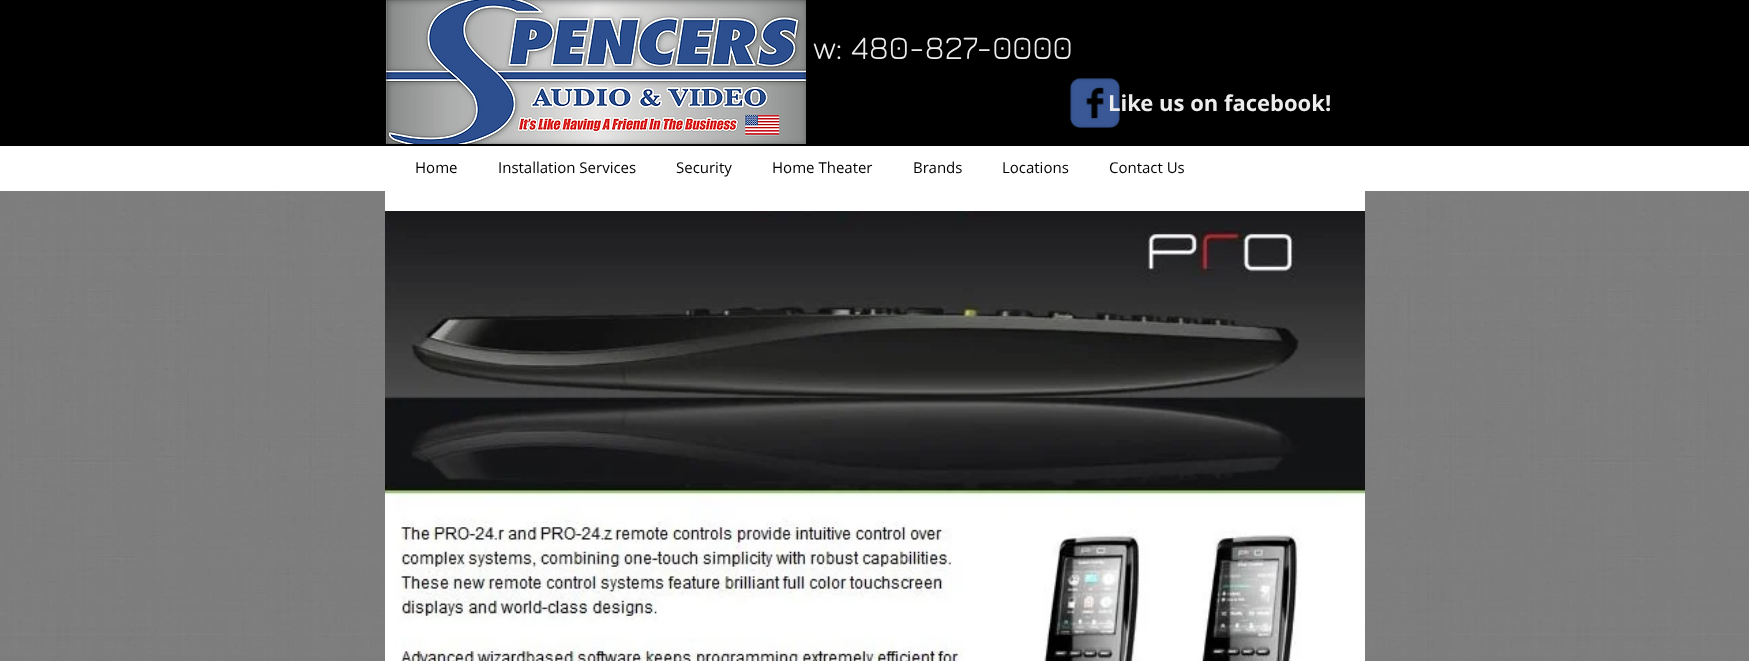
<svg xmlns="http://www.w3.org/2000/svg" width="1749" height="661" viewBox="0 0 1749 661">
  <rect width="100%" height="100%" fill="rgb(255,255,255)"/>
  <rect x="0" y="0" width="1749" height="146" fill="rgb(0,0,0)"/>
  <image x="386" y="0" width="420" height="144" href="pic1.png"/>
  <text x="813" y="59" font-family="Jura" font-size="33" fill="rgb(237,237,237)">w: 480-827-0000</text>
  <image x="1070" y="78" width="50" height="50" href="pic2.png"/>
  <text x="1108" y="111" font-family="Open Sans" font-size="22" font-weight="bold" fill="rgb(237,237,237)">Like us on facebook!</text>
  <g font-family="Open Sans" font-size="15" fill="rgb(0,0,0)">
    <text x="415" y="173">Home</text>
    <text x="498" y="173">Installation Services</text>
    <text x="676" y="173">Security</text>
    <text x="772" y="173">Home Theater</text>
    <text x="913" y="173">Brands</text>
    <text x="1002" y="173">Locations</text>
    <text x="1109" y="173">Contact Us</text>
  </g>
  <image x="0" y="191" width="1749" height="470" href="pic4.png"/>
  <rect x="385" y="191" width="980" height="20" fill="rgb(255,255,255)"/>
  <image x="385" y="211" width="980" height="450" href="pic3.png"/>
</svg>
